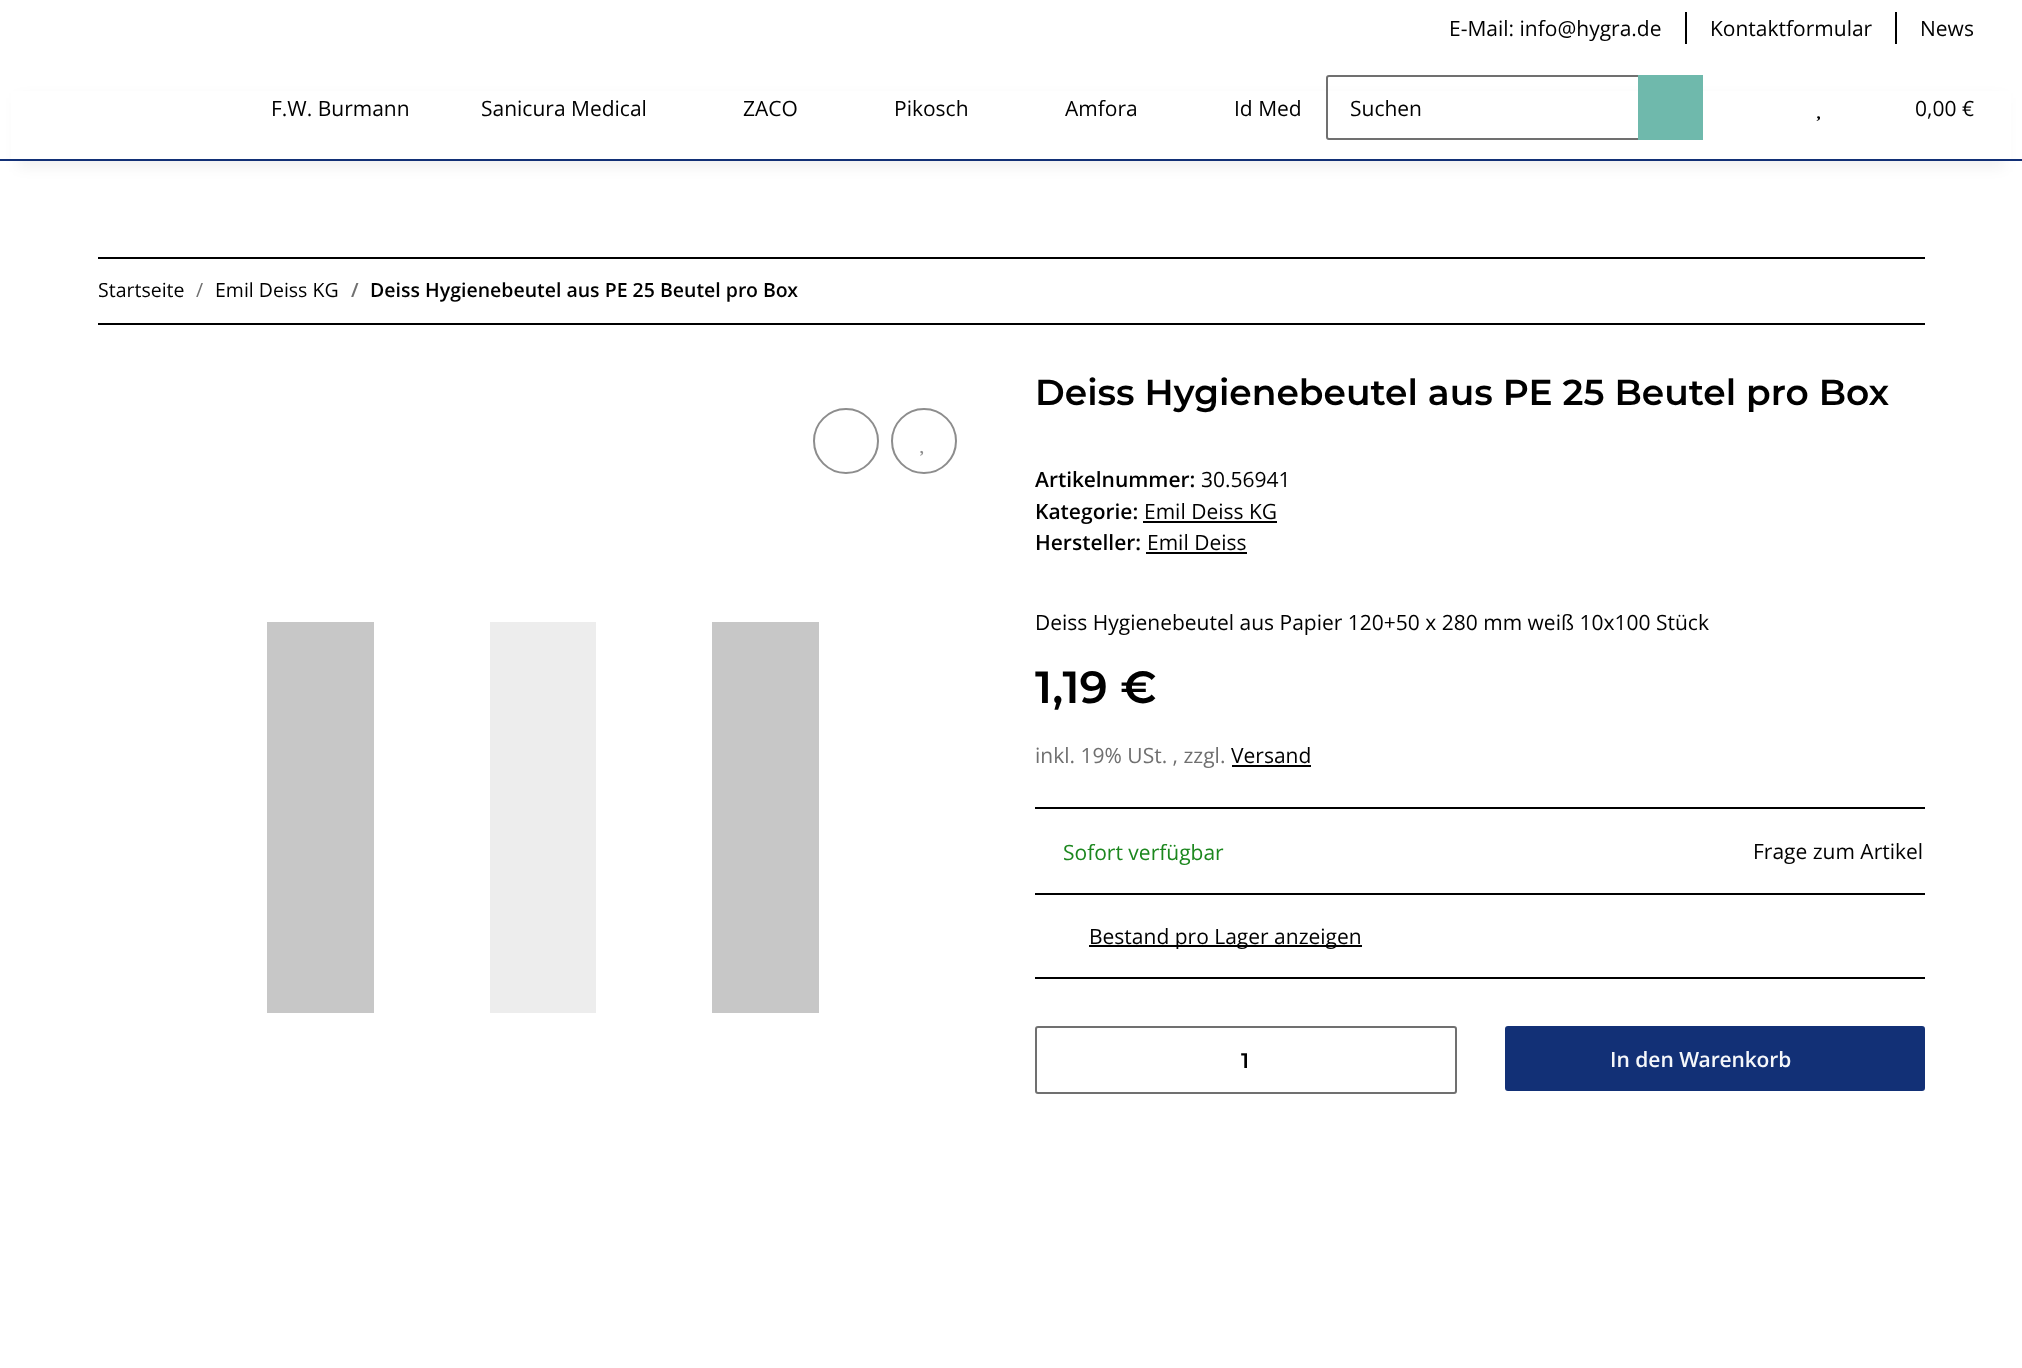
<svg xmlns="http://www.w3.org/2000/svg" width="2022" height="1368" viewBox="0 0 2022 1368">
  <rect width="100%" height="100%" fill="rgb(255,255,255)"/>
  <text x="1449" y="36" font-family="Open Sans" font-size="21" fill="rgb(0,0,0)">E-Mail: info@hygra.de</text>
  <rect x="1685" y="12" width="2" height="32" fill="rgb(0,0,0)"/>
  <text x="1710" y="36" font-family="Open Sans" font-size="21" fill="rgb(0,0,0)">Kontaktformular</text>
  <rect x="1895" y="12" width="2" height="32" fill="rgb(0,0,0)"/>
  <text x="1920" y="36" font-family="Open Sans" font-size="21" fill="rgb(0,0,0)">News</text>
  <rect x="18" y="98" width="1986" height="69" fill="rgba(0,0,0,0.06)" filter="blur(7px)"/>
  <rect x="11" y="91" width="2000" height="68" fill="rgb(255,255,255)"/>
  <rect x="0" y="159" width="2022" height="2" fill="rgb(18,48,118)"/>
  <g font-family="Open Sans" font-size="21" fill="rgb(0,0,0)">
    <text x="271" y="116">F.W. Burmann</text>
    <text x="481" y="116">Sanicura Medical</text>
    <text x="743" y="116">ZACO</text>
    <text x="894" y="116">Pikosch</text>
    <text x="1065" y="116">Amfora</text>
    <text x="1234" y="116">Id Med</text>
  </g>
  <path d="M1329 76H1639V139H1329C1328 139 1327 138 1327 137V78C1327 77 1328 76 1329 76Z" fill="none" stroke="rgb(112,112,112)" stroke-width="2"/>
  <text x="1350" y="116" font-family="Open Sans" font-size="21" fill="rgb(0,0,0)">Suchen</text>
  <rect x="1638" y="75" width="65" height="65" fill="rgb(111,185,172)"/>
  <image x="1816" y="116" width="4" height="5" href="pic1.png"/>
  <text x="1915" y="116" font-family="Open Sans" font-size="21" fill="rgb(0,0,0)">0,00 €</text>
  <rect x="98" y="257" width="1827" height="2" fill="rgb(0,0,0)"/>
  <rect x="98" y="323" width="1827" height="2" fill="rgb(0,0,0)"/>
  <text x="98" y="297" font-family="Open Sans" font-size="19.5" fill="rgb(0,0,0)">Startseite</text>
  <text x="196" y="297" font-family="Open Sans" font-size="19.5" fill="rgb(112,112,112)">/</text>
  <text x="215" y="297" font-family="Open Sans" font-size="19.5" fill="rgb(0,0,0)">Emil Deiss KG</text>
  <text x="351" y="297" font-family="Open Sans" font-size="19.5" font-weight="600" fill="rgb(112,112,112)">/</text>
  <text x="370" y="297" font-family="Open Sans" font-size="19.5" font-weight="600" fill="rgb(0,0,0)">Deiss Hygienebeutel aus PE 25 Beutel pro Box</text>
  <circle cx="846" cy="441" r="32" fill="none" stroke="rgb(141,141,141)" stroke-width="2"/>
  <circle cx="924" cy="441" r="32" fill="none" stroke="rgb(141,141,141)" stroke-width="2"/>
  <image x="920" y="450" width="4" height="6" href="pic2.png"/>
  <rect x="267" y="622" width="107" height="391" fill="rgb(199,199,199)"/>
  <rect x="490" y="622" width="106" height="391" fill="rgb(237,237,237)"/>
  <rect x="712" y="622" width="107" height="391" fill="rgb(199,199,199)"/>
  <text x="1035" y="405" font-family="Montserrat" font-size="36" font-weight="600" fill="rgb(0,0,0)">Deiss Hygienebeutel aus PE 25 Beutel pro Box</text>
  <text x="1035" y="487" font-family="Open Sans" font-size="21" font-weight="600" fill="rgb(0,0,0)">Artikelnummer:</text>
  <text x="1201" y="487" font-family="Open Sans" font-size="21" fill="rgb(0,0,0)">30.56941</text>
  <text x="1035" y="519" font-family="Open Sans" font-size="21" font-weight="600" fill="rgb(0,0,0)">Kategorie:</text>
  <text x="1144" y="519" font-family="Open Sans" font-size="21" fill="rgb(0,0,0)">Emil Deiss KG</text>
  <rect x="1143" y="521" width="134" height="2" fill="rgb(0,0,0)"/>
  <text x="1035" y="550" font-family="Open Sans" font-size="21" font-weight="600" fill="rgb(0,0,0)">Hersteller:</text>
  <text x="1147" y="550" font-family="Open Sans" font-size="21" fill="rgb(0,0,0)">Emil Deiss</text>
  <rect x="1146" y="552" width="101" height="2" fill="rgb(0,0,0)"/>
  <text x="1035" y="630" font-family="Open Sans" font-size="21" fill="rgb(0,0,0)">Deiss Hygienebeutel aus Papier 120+50 x 280 mm weiß 10x100 Stück</text>
  <text x="1035" y="703" font-family="Montserrat" font-size="45" font-weight="600" fill="rgb(0,0,0)">1,19 €</text>
  <text x="1035" y="763" font-family="Open Sans" font-size="21" fill="rgb(112,112,112)">inkl. 19% USt. , zzgl.</text>
  <text x="1231" y="763" font-family="Open Sans" font-size="21" fill="rgb(0,0,0)">Versand</text>
  <rect x="1232" y="765" width="79" height="2" fill="rgb(0,0,0)"/>
  <rect x="1035" y="807" width="890" height="2" fill="rgb(0,0,0)"/>
  <rect x="1035" y="893" width="890" height="2" fill="rgb(0,0,0)"/>
  <text x="1063" y="860" font-family="Open Sans" font-size="21" fill="rgb(28,135,30)">Sofort verfügbar</text>
  <text x="1753" y="859" font-family="Open Sans" font-size="21" fill="rgb(0,0,0)">Frage zum Artikel</text>
  <rect x="1035" y="977" width="890" height="2" fill="rgb(0,0,0)"/>
  <rect x="1089" y="945" width="273" height="2" fill="rgb(0,0,0)"/>
  <text x="1089" y="944" font-family="Open Sans" font-size="21" fill="rgb(0,0,0)">Bestand pro Lager anzeigen</text>
  <rect x="1036" y="1027" width="420" height="66" rx="2" fill="none" stroke="rgb(112,112,112)" stroke-width="2"/>
  <text x="1241" y="1068" font-family="Montserrat" font-size="21" font-weight="600" fill="rgb(0,0,0)">1</text>
  <rect x="1506" y="1027" width="418" height="63" rx="2" fill="rgb(18,48,118)" stroke="rgb(18,48,118)" stroke-width="2"/>
  <text x="1610" y="1067" font-family="Open Sans" font-size="21" font-weight="600" fill="rgb(245,247,250)">In den Warenkorb</text>
</svg>
